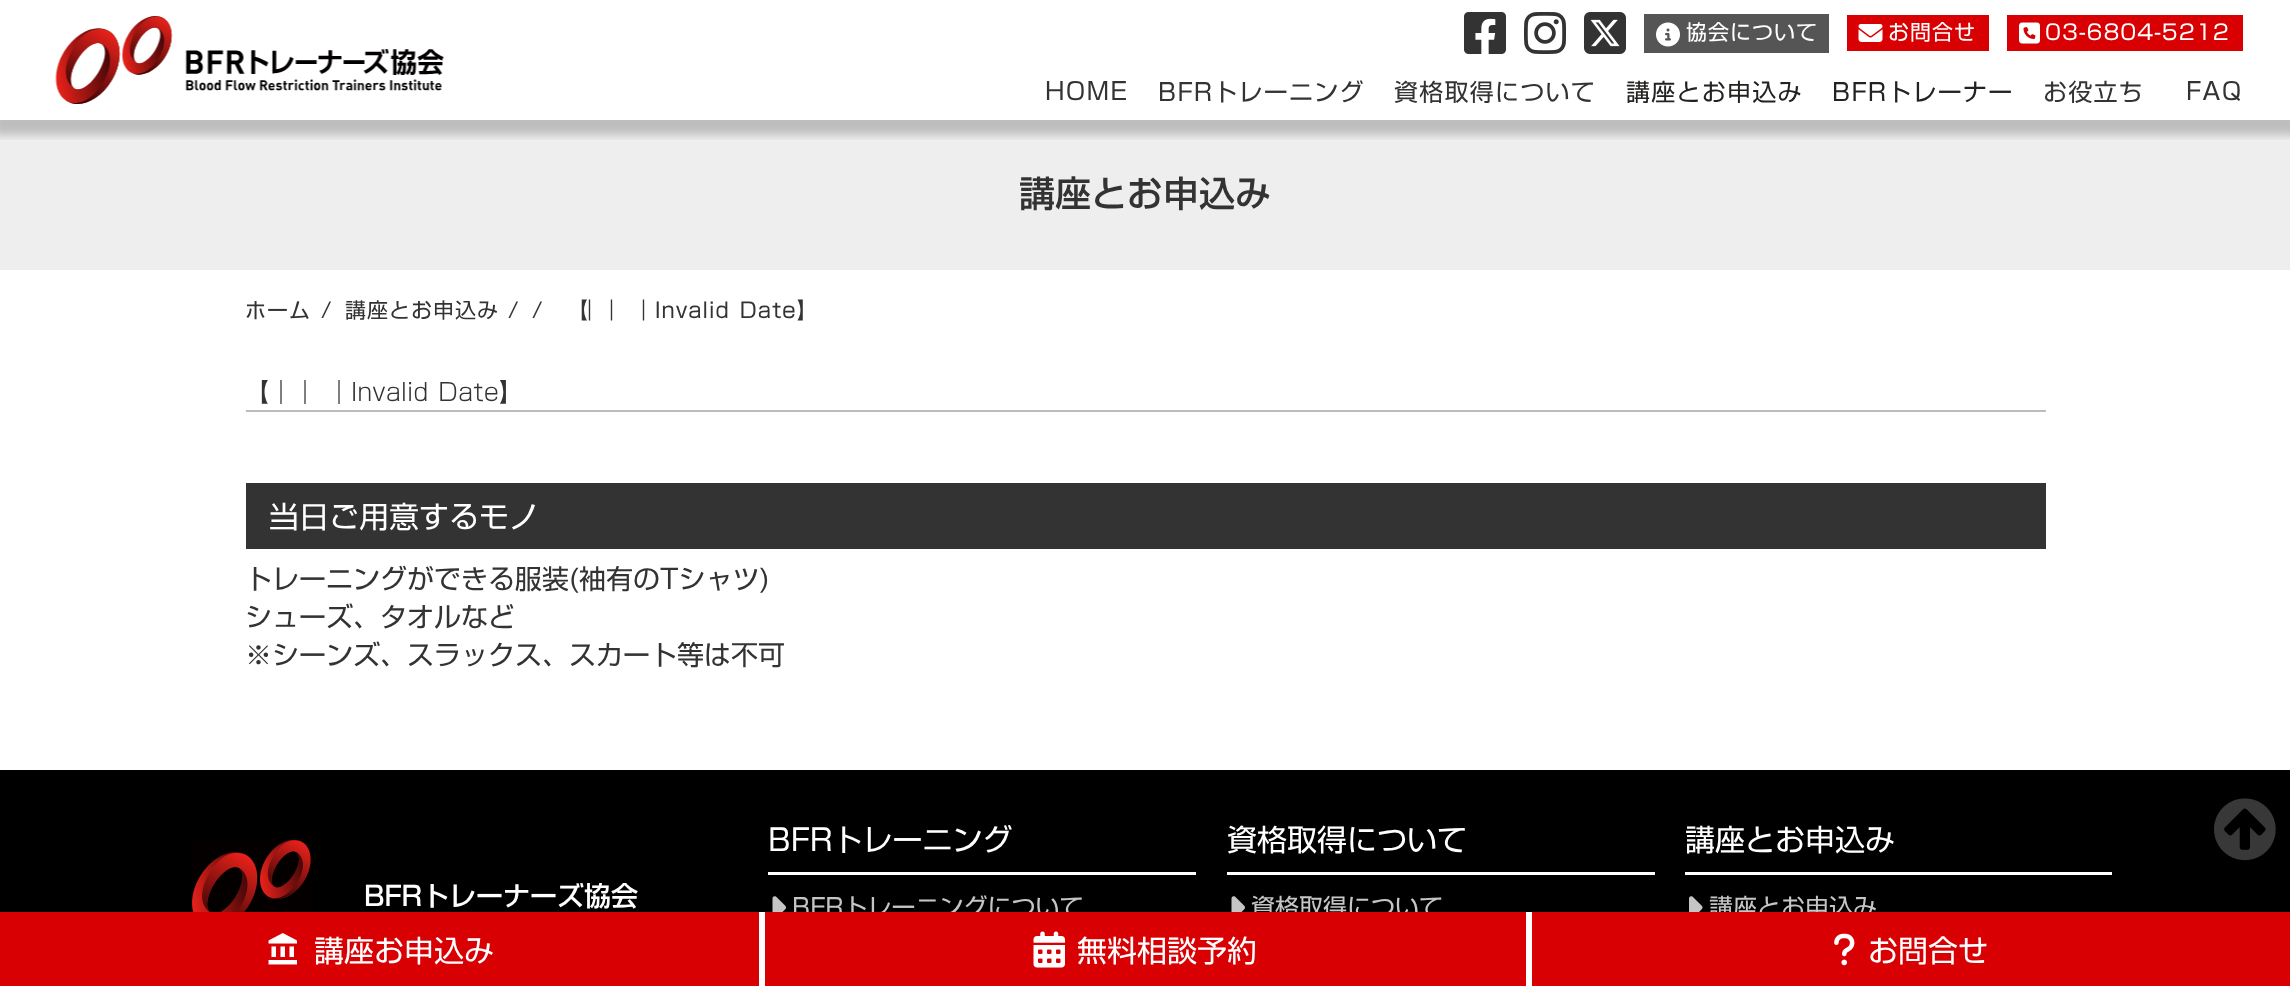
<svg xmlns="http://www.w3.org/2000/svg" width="2290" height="986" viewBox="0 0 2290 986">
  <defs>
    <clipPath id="clip1"><rect x="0" y="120" width="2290" height="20"/></clipPath>
  </defs>
  <rect width="100%" height="100%" fill="rgb(255,255,255)"/>
  <rect x="0" y="120" width="2290" height="150" fill="rgb(238,238,238)"/>
  <g clip-path="url(#clip1)">
    <rect x="-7" y="0" width="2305" height="135" fill="rgba(0,0,0,0.2)" filter="blur(4px)"/>
  </g>
  <image x="55" y="16" width="389" height="88" href="pic1.png"/>
  <image x="1464" y="12" width="42" height="42" href="pic2.png"/>
  <image x="1524" y="12" width="42" height="42" href="pic3.png"/>
  <image x="1584" y="12" width="42" height="42" href="pic4.png"/>
  <rect x="1644" y="14" width="185" height="39" fill="rgb(85,85,85)"/>
  <image x="1656" y="22" width="24" height="25" href="pic5.png"/>
  <text x="1686" y="40" font-family="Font" font-size="21" letter-spacing="1" fill="rgb(255,255,255)">協会について</text>
  <rect x="1847" y="15" width="142" height="36" fill="rgb(217,0,3)"/>
  <image x="1858" y="24" width="25" height="18" href="pic6.png"/>
  <text x="1888" y="40" font-family="Font" font-size="21" letter-spacing="1" fill="rgb(255,255,255)">お問合せ</text>
  <rect x="2007" y="15" width="236" height="36" fill="rgb(217,0,3)"/>
  <image x="2019" y="22" width="21" height="22" href="pic7.png"/>
  <text x="2045" y="40" font-family="Font" font-size="21" letter-spacing="1" fill="rgb(255,255,255)">03-6804-5212</text>
  <g font-family="Font" font-size="24" letter-spacing="1.25" fill="rgb(51,51,51)">
    <text x="1045" y="100">HOME</text>
    <text x="1158" y="101">BFRトレーニング</text>
    <text x="1394" y="101">資格取得について</text>
  </g>
  <g font-family="Font" font-size="24" letter-spacing="1.25" fill="rgb(35,34,33)">
    <text x="1626" y="101">講座とお申込み</text>
    <text x="1832" y="101">BFRトレーナー</text>
  </g>
  <g font-family="Font" font-size="24" letter-spacing="1.25" fill="rgb(51,51,51)">
    <text x="2043" y="101">お役立ち</text>
    <text x="2186" y="100">FAQ</text>
  </g>
  <text x="1019" y="207" font-family="Font" font-size="36" font-weight="500" fill="rgb(51,51,51)">講座とお申込み</text>
  <g font-family="Font" font-size="21" letter-spacing="1" fill="rgb(51,51,51)">
    <text x="245" y="318">ホーム</text>
    <text x="321" y="318">/</text>
    <text x="345" y="318">講座とお申込み</text>
    <text x="508" y="318">/</text>
    <text x="532" y="318">/</text>
    <text x="567" y="318" word-spacing="2">【</text>
    <text x="579" y="318" word-spacing="2">｜｜ ｜Invalid Date】</text>
  </g>
  <text x="245" y="401" word-spacing="2" font-family="Font" font-size="24" font-weight="300" fill="rgb(51,51,51)">【｜｜ ｜Invalid Date】</text>
  <rect x="246" y="410" width="1800" height="2" fill="rgb(188,188,188)"/>
  <rect x="246" y="483" width="1800" height="66" fill="rgb(51,51,51)"/>
  <text x="269" y="528" font-family="Font" font-size="30" fill="rgb(255,255,255)">当日ご用意するモノ</text>
  <g font-family="Font" font-size="27" fill="rgb(51,51,51)">
    <text>
      <tspan x="245" y="589">トレーニングができる服装(袖有のTシャツ)</tspan>
      <tspan x="245" y="627">シューズ、タオルなど</tspan>
      <tspan x="245" y="665">※シーンズ、スラックス、スカート等は不可</tspan>
    </text>
  </g>
  <rect x="0" y="770" width="2290" height="142" fill="rgb(0,0,0)"/>
  <image x="192" y="839" width="120" height="73" href="pic8.png"/>
  <text x="364" y="906" font-family="Font" font-size="27" font-weight="500" fill="rgb(255,255,255)">BFRトレーナーズ協会</text>
  <rect x="768" y="872" width="428" height="3" fill="rgb(255,255,255)"/>
  <text x="768" y="851" font-family="Font" font-size="30" fill="rgb(255,255,255)">BFRトレーニング</text>
  <image x="772" y="896" width="14" height="16" href="pic9.png"/>
  <text x="792" y="916" font-family="Font" font-size="24" fill="rgb(197,197,197)">BFRトレーニングについて</text>
  <rect x="1227" y="872" width="428" height="3" fill="rgb(255,255,255)"/>
  <text x="1227" y="851" font-family="Font" font-size="30" fill="rgb(255,255,255)">資格取得について</text>
  <image x="1231" y="896" width="14" height="16" href="pic9.png"/>
  <text x="1251" y="916" font-family="Font" font-size="24" fill="rgb(197,197,197)">資格取得について</text>
  <rect x="1685" y="872" width="427" height="3" fill="rgb(255,255,255)"/>
  <text x="1685" y="851" font-family="Font" font-size="30" fill="rgb(255,255,255)">講座とお申込み</text>
  <image x="1689" y="896" width="14" height="16" href="pic10.png"/>
  <text x="1709" y="916" font-family="Font" font-size="24" fill="rgb(197,197,197)">講座とお申込み</text>
  <image x="2214" y="798" width="62" height="63" href="pic11.png"/>
  <rect x="794" y="912" width="645" height="6" fill="rgb(255,255,255)"/>
  <rect x="0" y="912" width="759" height="74" fill="rgb(217,0,3)"/>
  <image x="268" y="933" width="29" height="32" href="pic12.png"/>
  <text x="314" y="962" font-family="Font" font-size="30" fill="rgb(255,255,255)">講座お申込み</text>
  <rect x="765" y="912" width="761" height="74" fill="rgb(217,0,3)"/>
  <image x="1033" y="931" width="32" height="37" href="pic13.png"/>
  <text x="1077" y="962" font-family="Font" font-size="30" fill="rgb(255,255,255)">無料相談予約</text>
  <rect x="1532" y="912" width="758" height="74" fill="rgb(217,0,3)"/>
  <image x="1834" y="933" width="21" height="33" href="pic14.png"/>
  <text x="1868" y="962" font-family="Font" font-size="30" fill="rgb(255,255,255)">お問合せ</text>
</svg>
